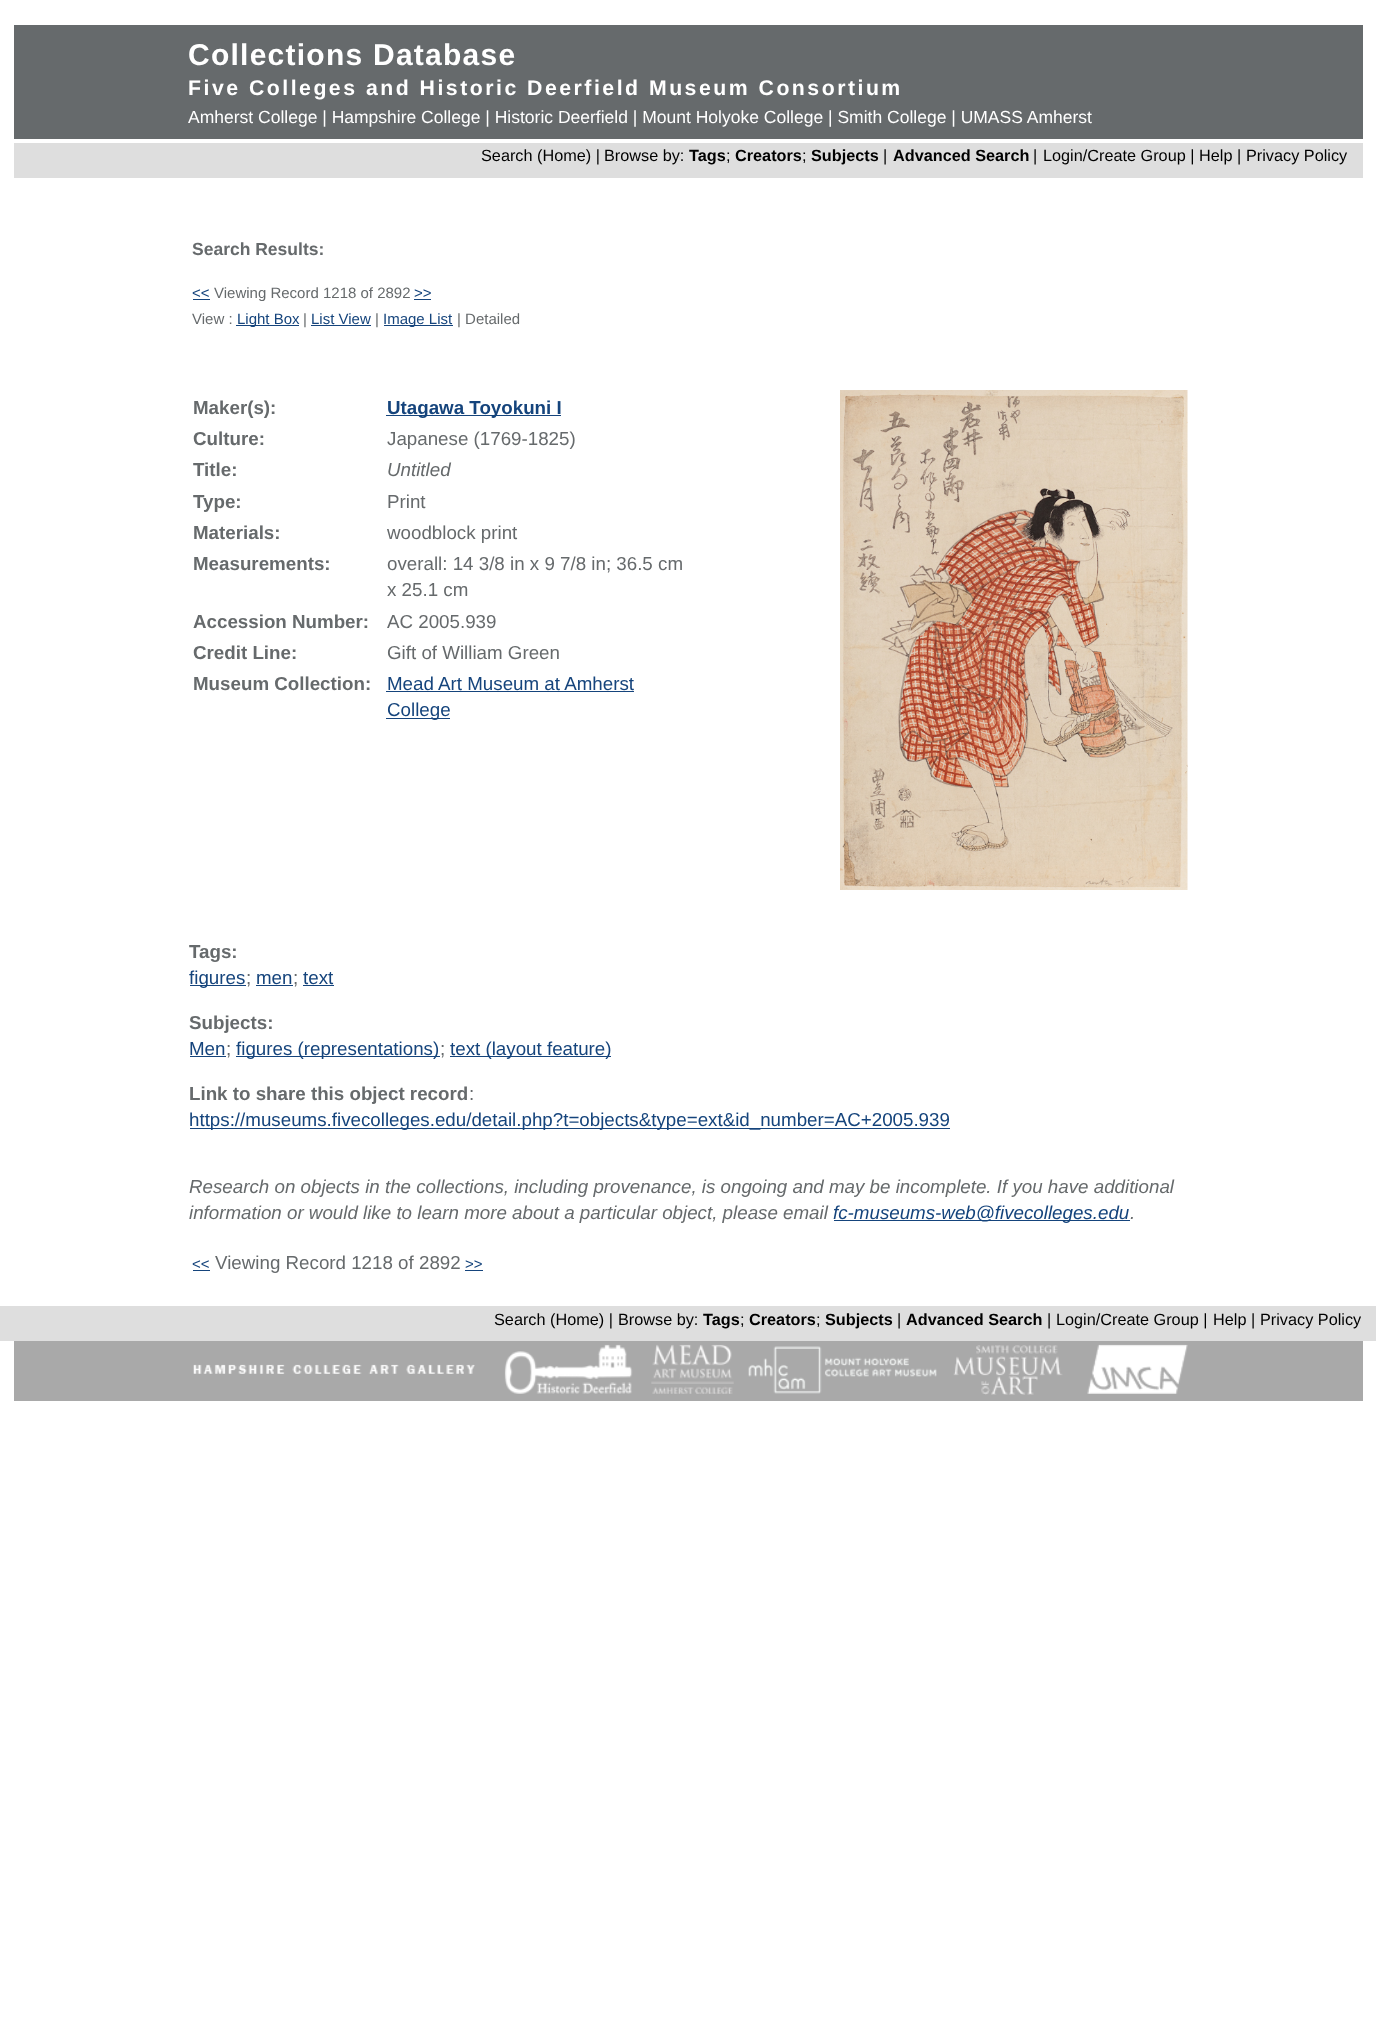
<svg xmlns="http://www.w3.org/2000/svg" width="1376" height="2021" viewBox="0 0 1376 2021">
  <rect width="100%" height="100%" fill="rgb(255,255,255)"/>
  <rect x="14" y="25" width="1349" height="114" fill="rgb(102,106,108)"/>
  <text x="188" y="65" font-family="Liberation Sans" font-size="30" font-weight="bold" letter-spacing="1.25" fill="rgb(255,255,255)">Collections Database</text>
  <text x="188" y="95" font-family="Liberation Sans" font-size="21.25" font-weight="bold" letter-spacing="2.5" fill="rgb(255,255,255)">Five Colleges and Historic Deerfield Museum Consortium</text>
  <text x="188" y="123" font-family="Liberation Sans" font-size="17.5" fill="rgb(255,255,255)">Amherst College | Hampshire College | Historic Deerfield | Mount Holyoke College | Smith College | UMASS Amherst</text>
  <rect x="14" y="143" width="1349" height="35" fill="rgb(222,222,222)"/>
  <g font-family="Liberation Sans" font-size="16.25" fill="rgb(0,0,0)">
    <text x="481" y="161">Search (Home) |</text>
    <text x="604" y="161">Browse by:</text>
  </g>
  <text x="689" y="161" font-family="Liberation Sans" font-size="16.25" font-weight="bold" fill="rgb(0,0,0)">Tags</text>
  <text x="726" y="161" font-family="Liberation Sans" font-size="16.25" fill="rgb(0,0,0)">;</text>
  <text x="735" y="161" font-family="Liberation Sans" font-size="16.25" font-weight="bold" fill="rgb(0,0,0)">Creators</text>
  <text x="802" y="161" font-family="Liberation Sans" font-size="16.25" fill="rgb(0,0,0)">;</text>
  <text x="811" y="161" font-family="Liberation Sans" font-size="16.25" font-weight="bold" fill="rgb(0,0,0)">Subjects</text>
  <text x="883" y="161" font-family="Liberation Sans" font-size="16.25" fill="rgb(0,0,0)">|</text>
  <text x="893" y="161" font-family="Liberation Sans" font-size="16.25" font-weight="bold" fill="rgb(0,0,0)">Advanced Search</text>
  <g font-family="Liberation Sans" font-size="16.25" fill="rgb(0,0,0)">
    <text x="1033" y="161">|</text>
    <text x="1043" y="161">Login/Create Group |</text>
    <text x="1199" y="161">Help |</text>
    <text x="1246" y="161">Privacy Policy</text>
  </g>
  <text x="192" y="255" font-family="Liberation Sans" font-size="17.5" font-weight="bold" fill="rgb(102,106,108)">Search Results:</text>
  <text x="192" y="298" font-family="Liberation Sans" font-size="15" fill="rgb(21,68,124)">&lt;&lt;</text>
  <rect x="193" y="299" width="17" height="1" fill="rgb(21,68,124)"/>
  <text x="214" y="298" font-family="Liberation Sans" font-size="15" fill="rgb(102,106,108)">Viewing Record 1218 of 2892</text>
  <text x="414" y="298" font-family="Liberation Sans" font-size="15" fill="rgb(21,68,124)">&gt;&gt;</text>
  <rect x="414" y="299" width="17" height="1" fill="rgb(21,68,124)"/>
  <text x="192" y="324" font-family="Liberation Sans" font-size="15" fill="rgb(102,106,108)">View :</text>
  <rect x="236" y="325" width="63" height="1" fill="rgb(21,68,124)"/>
  <text x="237" y="324" font-family="Liberation Sans" font-size="15" fill="rgb(21,68,124)">Light Box</text>
  <text x="303" y="324" font-family="Liberation Sans" font-size="15" fill="rgb(102,106,108)">|</text>
  <text x="311" y="324" font-family="Liberation Sans" font-size="15" fill="rgb(21,68,124)">List View</text>
  <rect x="311" y="325" width="60" height="1" fill="rgb(21,68,124)"/>
  <text x="375" y="324" font-family="Liberation Sans" font-size="15" fill="rgb(102,106,108)">|</text>
  <rect x="384" y="325" width="69" height="1" fill="rgb(21,68,124)"/>
  <text x="383" y="324" font-family="Liberation Sans" font-size="15" fill="rgb(21,68,124)">Image List</text>
  <text x="457" y="324" font-family="Liberation Sans" font-size="15" fill="rgb(102,106,108)">| Detailed</text>
  <text x="193" y="414" font-family="Liberation Sans" font-size="18.75" font-weight="bold" fill="rgb(102,106,108)">Maker(s):</text>
  <rect x="386" y="415" width="175" height="1" fill="rgb(21,68,124)"/>
  <text x="387" y="414" font-family="Liberation Sans" font-size="18.75" font-weight="bold" fill="rgb(21,68,124)">Utagawa Toyokuni I</text>
  <text x="193" y="445" font-family="Liberation Sans" font-size="18.75" font-weight="bold" fill="rgb(102,106,108)">Culture:</text>
  <text x="387" y="445" font-family="Liberation Sans" font-size="18.75" fill="rgb(102,106,108)">Japanese (1769-1825)</text>
  <text x="193" y="476" font-family="Liberation Sans" font-size="18.75" font-weight="bold" fill="rgb(102,106,108)">Title:</text>
  <text x="387" y="476" font-family="Liberation Sans" font-size="18.75" font-style="italic" fill="rgb(102,106,108)">Untitled</text>
  <text x="193" y="508" font-family="Liberation Sans" font-size="18.75" font-weight="bold" fill="rgb(102,106,108)">Type:</text>
  <text x="387" y="508" font-family="Liberation Sans" font-size="18.75" fill="rgb(102,106,108)">Print</text>
  <text x="193" y="539" font-family="Liberation Sans" font-size="18.75" font-weight="bold" fill="rgb(102,106,108)">Materials:</text>
  <text x="387" y="539" font-family="Liberation Sans" font-size="18.75" fill="rgb(102,106,108)">woodblock print</text>
  <text x="193" y="570" font-family="Liberation Sans" font-size="18.75" font-weight="bold" fill="rgb(102,106,108)">Measurements:</text>
  <g font-family="Liberation Sans" font-size="18.75" fill="rgb(102,106,108)">
    <text>
      <tspan x="387" y="570">overall: 14 3/8 in x 9 7/8 in; 36.5 cm</tspan>
      <tspan x="387" y="596">x 25.1 cm</tspan>
    </text>
  </g>
  <text x="193" y="628" font-family="Liberation Sans" font-size="18.75" font-weight="bold" fill="rgb(102,106,108)">Accession Number:</text>
  <text x="387" y="628" font-family="Liberation Sans" font-size="18.75" fill="rgb(102,106,108)">AC 2005.939</text>
  <text x="193" y="659" font-family="Liberation Sans" font-size="18.75" font-weight="bold" fill="rgb(102,106,108)">Credit Line:</text>
  <text x="387" y="659" font-family="Liberation Sans" font-size="18.75" fill="rgb(102,106,108)">Gift of William Green</text>
  <text x="193" y="690" font-family="Liberation Sans" font-size="18.75" font-weight="bold" fill="rgb(102,106,108)">Museum Collection:</text>
  <text x="387" y="690" font-family="Liberation Sans" font-size="18.75" fill="rgb(21,68,124)">Mead Art Museum at Amherst</text>
  <rect x="386" y="691" width="248" height="1" fill="rgb(21,68,124)"/>
  <rect x="386" y="718" width="64" height="1" fill="rgb(21,68,124)"/>
  <text x="387" y="716" font-family="Liberation Sans" font-size="18.75" fill="rgb(21,68,124)">College</text>
  <image x="840" y="390" width="348" height="500" href="pic1.png"/>
  <text x="189" y="958" font-family="Liberation Sans" font-size="18.75" font-weight="bold" fill="rgb(102,106,108)">Tags:</text>
  <rect x="190" y="985" width="56" height="1" fill="rgb(21,68,124)"/>
  <text x="189" y="984" font-family="Liberation Sans" font-size="18.75" fill="rgb(21,68,124)">figures</text>
  <text x="246" y="984" font-family="Liberation Sans" font-size="18.75" fill="rgb(102,106,108)">;</text>
  <text x="256" y="984" font-family="Liberation Sans" font-size="18.75" fill="rgb(21,68,124)">men</text>
  <rect x="256" y="985" width="37" height="1" fill="rgb(21,68,124)"/>
  <text x="293" y="984" font-family="Liberation Sans" font-size="18.75" fill="rgb(102,106,108)">;</text>
  <text x="303" y="984" font-family="Liberation Sans" font-size="18.75" fill="rgb(21,68,124)">text</text>
  <rect x="303" y="985" width="31" height="1" fill="rgb(21,68,124)"/>
  <text x="189" y="1029" font-family="Liberation Sans" font-size="18.75" font-weight="bold" fill="rgb(102,106,108)">Subjects:</text>
  <text x="189" y="1055" font-family="Liberation Sans" font-size="18.75" fill="rgb(21,68,124)">Men</text>
  <rect x="190" y="1056" width="36" height="1" fill="rgb(21,68,124)"/>
  <text x="226" y="1055" font-family="Liberation Sans" font-size="18.75" fill="rgb(102,106,108)">;</text>
  <rect x="236" y="1056" width="204" height="1" fill="rgb(21,68,124)"/>
  <text x="236" y="1055" font-family="Liberation Sans" font-size="18.75" fill="rgb(21,68,124)">figures (representations)</text>
  <text x="440" y="1055" font-family="Liberation Sans" font-size="18.75" fill="rgb(102,106,108)">;</text>
  <rect x="450" y="1056" width="161" height="1" fill="rgb(21,68,124)"/>
  <text x="450" y="1055" font-family="Liberation Sans" font-size="18.75" fill="rgb(21,68,124)">text (layout feature)</text>
  <text x="189" y="1100" font-family="Liberation Sans" font-size="18.75" font-weight="bold" fill="rgb(102,106,108)">Link to share this object record</text>
  <text x="469" y="1100" font-family="Liberation Sans" font-size="18.75" fill="rgb(102,106,108)">:</text>
  <rect x="190" y="1128" width="760" height="1" fill="rgb(21,68,124)"/>
  <text x="189" y="1126" font-family="Liberation Sans" font-size="18.75" fill="rgb(21,68,124)">https://museums.fivecolleges.edu/detail.php?t=objects&amp;type=ext&amp;id_number=AC+2005.939</text>
  <g font-family="Liberation Sans" font-size="18.75" font-style="italic" fill="rgb(102,106,108)">
    <text>
      <tspan x="189" y="1193">Research on objects in the collections, including provenance, is ongoing and may be incomplete. If you have additional</tspan>
      <tspan x="189" y="1219">information or would like to learn more about a particular object, please email</tspan>
    </text>
  </g>
  <rect x="834" y="1220" width="296" height="1" fill="rgb(21,68,124)"/>
  <text x="833" y="1219" font-family="Liberation Sans" font-size="18.75" font-style="italic" fill="rgb(21,68,124)">fc-museums-web@fivecolleges.edu</text>
  <text x="1130" y="1219" font-family="Liberation Sans" font-size="18.75" font-style="italic" fill="rgb(102,106,108)">.</text>
  <text x="192" y="1269" font-family="Liberation Sans" font-size="15" fill="rgb(21,68,124)">&lt;&lt;</text>
  <rect x="193" y="1270" width="17" height="1" fill="rgb(21,68,124)"/>
  <text x="215" y="1269" font-family="Liberation Sans" font-size="18.75" fill="rgb(102,106,108)">Viewing Record 1218 of 2892</text>
  <text x="465" y="1269" font-family="Liberation Sans" font-size="15" fill="rgb(21,68,124)">&gt;&gt;</text>
  <rect x="465" y="1270" width="18" height="1" fill="rgb(21,68,124)"/>
  <rect x="0" y="1306" width="1376" height="35" fill="rgb(222,222,222)"/>
  <g font-family="Liberation Sans" font-size="16.25" fill="rgb(0,0,0)">
    <text x="494" y="1325">Search (Home) |</text>
    <text x="618" y="1325">Browse by:</text>
  </g>
  <text x="703" y="1325" font-family="Liberation Sans" font-size="16.25" font-weight="bold" fill="rgb(0,0,0)">Tags</text>
  <text x="740" y="1325" font-family="Liberation Sans" font-size="16.25" fill="rgb(0,0,0)">;</text>
  <text x="749" y="1325" font-family="Liberation Sans" font-size="16.25" font-weight="bold" fill="rgb(0,0,0)">Creators</text>
  <text x="816" y="1325" font-family="Liberation Sans" font-size="16.25" fill="rgb(0,0,0)">;</text>
  <text x="825" y="1325" font-family="Liberation Sans" font-size="16.25" font-weight="bold" fill="rgb(0,0,0)">Subjects</text>
  <text x="897" y="1325" font-family="Liberation Sans" font-size="16.25" fill="rgb(0,0,0)">|</text>
  <text x="906" y="1325" font-family="Liberation Sans" font-size="16.25" font-weight="bold" fill="rgb(0,0,0)">Advanced Search</text>
  <g font-family="Liberation Sans" font-size="16.25" fill="rgb(0,0,0)">
    <text x="1047" y="1325">|</text>
    <text x="1056" y="1325">Login/Create Group |</text>
    <text x="1213" y="1325">Help |</text>
    <text x="1260" y="1325">Privacy Policy</text>
  </g>
  <rect x="14" y="1341" width="1349" height="60" fill="rgb(169,169,169)"/>
  <image x="193" y="1364" width="282" height="10" href="pic2.png"/>
  <image x="504" y="1344" width="129" height="50" href="pic3.png"/>
  <image x="651" y="1344" width="83" height="50" href="pic4.png"/>
  <image x="748" y="1346" width="189" height="48" href="pic5.png"/>
  <image x="953" y="1345" width="110" height="50" href="pic6.png"/>
  <image x="1087" y="1344" width="101" height="50" href="pic7.png"/>
</svg>
